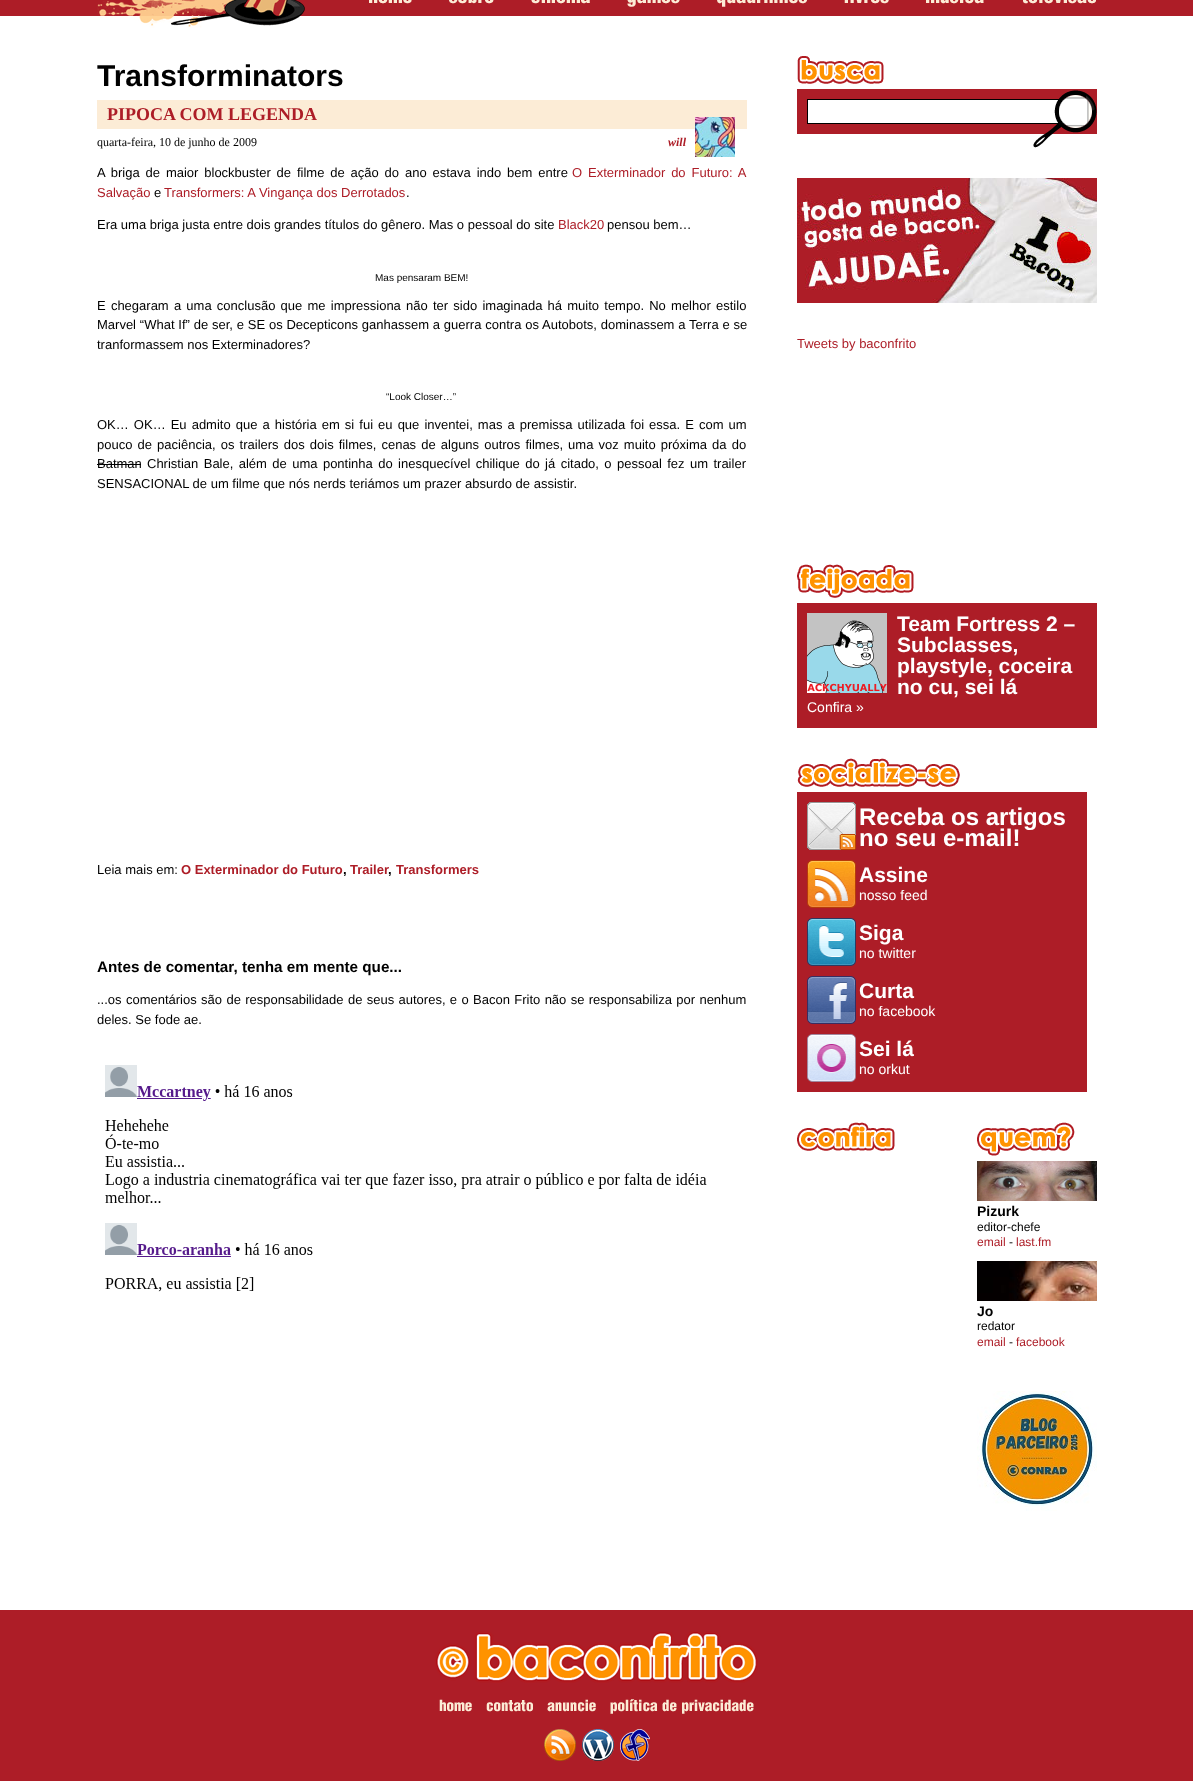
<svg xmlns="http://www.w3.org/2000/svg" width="1193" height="1781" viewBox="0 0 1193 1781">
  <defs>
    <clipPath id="clip1"><rect x="97" y="56" width="650" height="837"/></clipPath>
  </defs>
  <rect width="100%" height="100%" fill="rgb(255,255,255)"/>
  <rect x="0" y="0" width="1193" height="16" fill="rgb(173,29,39)"/>
  <image x="97" y="0" width="208" height="28" href="pic1.png"/>
  <image x="369" y="0" width="43" height="4" href="pic2.png"/>
  <image x="449" y="0" width="45" height="4" href="pic3.png"/>
  <image x="531" y="0" width="59" height="4" href="pic4.png"/>
  <image x="627" y="0" width="53" height="7" href="pic5.png"/>
  <image x="717" y="0" width="90" height="7" href="pic6.png"/>
  <image x="844" y="0" width="45" height="4" href="pic7.png"/>
  <image x="926" y="0" width="58" height="4" href="pic8.png"/>
  <image x="1023" y="0" width="73" height="4" href="pic9.png"/>
  <g clip-path="url(#clip1)">
    <text x="97" y="86" font-family="Liberation Sans" font-size="30" font-weight="bold" fill="rgb(0,0,0)">Transforminators</text>
  </g>
  <rect x="97" y="100" width="650" height="29" fill="rgb(252,236,214)"/>
  <text x="107" y="120" font-family="Liberation Serif" font-size="18" font-weight="bold" fill="rgb(173,29,39)">PIPOCA COM LEGENDA</text>
  <text x="97" y="146" font-family="Liberation Serif" font-size="12" fill="rgb(0,0,0)">quarta-feira, 10 de junho de 2009</text>
  <text x="668" y="146" font-family="Liberation Serif" font-size="12" font-weight="bold" font-style="italic" fill="rgb(173,29,39)">will</text>
  <image x="695" y="117" width="40" height="40" href="pic10.png"/>
  <text x="97" y="177" word-spacing="2.25" font-family="Liberation Sans" font-size="13" fill="rgb(0,0,0)">A briga de maior blockbuster de filme de ação do ano estava indo bem entre</text>
  <g font-family="Liberation Sans" font-size="13" fill="rgb(173,29,39)">
    <text x="572" y="177" word-spacing="2.25">O Exterminador do Futuro: A</text>
    <text x="97" y="197">Salvação</text>
  </g>
  <text x="154" y="197" font-family="Liberation Sans" font-size="13" fill="rgb(0,0,0)">e</text>
  <text x="164" y="197" font-family="Liberation Sans" font-size="13" fill="rgb(173,29,39)">Transformers: A Vingança dos Derrotados</text>
  <g font-family="Liberation Sans" font-size="13" fill="rgb(0,0,0)">
    <text x="406" y="197">.</text>
    <text x="97" y="229">Era uma briga justa entre dois grandes títulos do gênero. Mas o pessoal do site</text>
  </g>
  <text x="558" y="229" font-family="Liberation Sans" font-size="13" fill="rgb(173,29,39)">Black20</text>
  <text x="607" y="229" font-family="Liberation Sans" font-size="13" fill="rgb(0,0,0)">pensou bem…</text>
  <text x="375" y="281" font-family="Liberation Sans" font-size="10" fill="rgb(0,0,0)">Mas pensaram BEM!</text>
  <g font-family="Liberation Sans" font-size="13" fill="rgb(0,0,0)">
    <text>
      <tspan x="97" y="310" word-spacing="1.6">E chegaram a uma conclusão que me impressiona não ter sido imaginada há muito tempo. No melhor estilo</tspan>
      <tspan x="97" y="329" word-spacing="0.2">Marvel “What If” de ser, e SE os Decepticons ganhassem a guerra contra os Autobots, dominassem a Terra e se</tspan>
      <tspan x="97" y="349">tranformassem nos Exterminadores?</tspan>
    </text>
  </g>
  <text x="386" y="400" font-family="Liberation Sans" font-size="10" fill="rgb(0,0,0)">“Look Closer…”</text>
  <g font-family="Liberation Sans" font-size="13" fill="rgb(0,0,0)">
    <text>
      <tspan x="97" y="429" word-spacing="1.45">OK… OK… Eu admito que a história em si fui eu que inventei, mas a premissa utilizada foi essa. E com um</tspan>
      <tspan x="97" y="449" word-spacing="1.5">pouco de paciência, os trailers dos dois filmes, cenas de alguns outros filmes, uma voz muito próxima da do</tspan>
      <tspan x="97" y="468">Batman</tspan>
    </text>
  </g>
  <rect x="97" y="464" width="44" height="1" fill="rgb(0,0,0)"/>
  <g font-family="Liberation Sans" font-size="13" fill="rgb(0,0,0)">
    <text x="147" y="468" word-spacing="1.8">Christian Bale, além de uma pontinha do inesquecível chilique do já citado, o pessoal fez um trailer</text>
    <text x="97" y="488">SENSACIONAL de um filme que nós nerds teriámos um prazer absurdo de assistir.</text>
    <text x="97" y="874">Leia mais em:</text>
  </g>
  <text x="181" y="874" font-family="Liberation Sans" font-size="13" font-weight="bold" fill="rgb(173,29,39)">O Exterminador do Futuro</text>
  <text x="343" y="874" font-family="Liberation Sans" font-size="13" font-weight="bold" fill="rgb(0,0,0)">,</text>
  <text x="350" y="874" font-family="Liberation Sans" font-size="13" font-weight="bold" fill="rgb(173,29,39)">Trailer</text>
  <text x="388" y="874" font-family="Liberation Sans" font-size="13" font-weight="bold" fill="rgb(0,0,0)">,</text>
  <text x="396" y="874" font-family="Liberation Sans" font-size="13" font-weight="bold" fill="rgb(173,29,39)">Transformers</text>
  <text x="97" y="972" font-family="Liberation Sans" font-size="15.25" font-weight="bold" fill="rgb(0,0,0)">Antes de comentar, tenha em mente que...</text>
  <g font-family="Liberation Sans" font-size="13" fill="rgb(0,0,0)">
    <text>
      <tspan x="97" y="1004" word-spacing="0.75">...os comentários são de responsabilidade de seus autores, e o Bacon Frito não se responsabiliza por nenhum</tspan>
      <tspan x="97" y="1024">deles. Se fode ae.</tspan>
    </text>
  </g>
  <image x="105" y="1065" width="602" height="227" href="pic11.png"/>
  <image x="797" y="56" width="87" height="28" href="pic12.png"/>
  <image x="797" y="89" width="300" height="59" href="pic13.png"/>
  <image x="797" y="178" width="300" height="125" href="pic14.png"/>
  <text x="797" y="348" font-family="Liberation Sans" font-size="13" fill="rgb(173,29,39)">Tweets by baconfrito</text>
  <image x="797" y="564" width="117" height="34" href="pic15.png"/>
  <rect x="797" y="603" width="300" height="125" fill="rgb(173,29,39)"/>
  <image x="807" y="613" width="80" height="80" href="pic16.png"/>
  <g font-family="Liberation Sans" font-size="21" font-weight="bold" fill="rgb(255,255,255)">
    <text>
      <tspan x="897" y="631">Team Fortress 2 –</tspan>
      <tspan x="897" y="652">Subclasses,</tspan>
      <tspan x="897" y="673">playstyle, coceira</tspan>
      <tspan x="897" y="694">no cu, sei lá</tspan>
    </text>
  </g>
  <text x="807" y="712" font-family="Liberation Sans" font-size="14" fill="rgb(255,255,255)">Confira »</text>
  <image x="797" y="758" width="163" height="29" href="pic17.png"/>
  <rect x="797" y="792" width="290" height="300" fill="rgb(173,29,39)"/>
  <image x="807" y="802" width="49" height="48" href="pic18.png"/>
  <g font-family="Liberation Sans" font-size="24" font-weight="bold" fill="rgb(255,255,255)">
    <text>
      <tspan x="859" y="825">Receba os artigos</tspan>
      <tspan x="859" y="846">no seu e-mail!</tspan>
    </text>
  </g>
  <image x="807" y="860" width="49" height="48" href="pic19.png"/>
  <text x="859" y="882" font-family="Liberation Sans" font-size="21" font-weight="bold" fill="rgb(255,255,255)">Assine</text>
  <text x="859" y="900" font-family="Liberation Sans" font-size="14" fill="rgb(255,255,255)">nosso feed</text>
  <image x="807" y="918" width="49" height="48" href="pic20.png"/>
  <text x="859" y="940" font-family="Liberation Sans" font-size="21" font-weight="bold" fill="rgb(255,255,255)">Siga</text>
  <text x="859" y="958" font-family="Liberation Sans" font-size="14" fill="rgb(255,255,255)">no twitter</text>
  <image x="807" y="976" width="49" height="48" href="pic21.png"/>
  <text x="859" y="998" font-family="Liberation Sans" font-size="21" font-weight="bold" fill="rgb(255,255,255)">Curta</text>
  <text x="859" y="1016" font-family="Liberation Sans" font-size="14" fill="rgb(255,255,255)">no facebook</text>
  <image x="807" y="1034" width="49" height="48" href="pic22.png"/>
  <text x="859" y="1056" font-family="Liberation Sans" font-size="21" font-weight="bold" fill="rgb(255,255,255)">Sei lá</text>
  <text x="859" y="1074" font-family="Liberation Sans" font-size="14" fill="rgb(255,255,255)">no orkut</text>
  <image x="797" y="1122" width="98" height="29" href="pic23.png"/>
  <image x="977" y="1122" width="98" height="34" href="pic24.png"/>
  <image x="977" y="1161" width="120" height="40" href="pic25.png"/>
  <text x="977" y="1216" font-family="Liberation Sans" font-size="14" font-weight="bold" fill="rgb(0,0,0)">Pizurk</text>
  <text x="977" y="1231" font-family="Liberation Sans" font-size="12" fill="rgb(0,0,0)">editor-chefe</text>
  <text x="977" y="1246" font-family="Liberation Sans" font-size="12" fill="rgb(173,29,39)">email</text>
  <text x="1009" y="1246" font-family="Liberation Sans" font-size="12" fill="rgb(0,0,0)">-</text>
  <text x="1016" y="1246" font-family="Liberation Sans" font-size="12" fill="rgb(173,29,39)">last.fm</text>
  <image x="977" y="1261" width="120" height="40" href="pic26.png"/>
  <text x="977" y="1316" font-family="Liberation Sans" font-size="14" font-weight="bold" fill="rgb(0,0,0)">Jo</text>
  <text x="977" y="1330" font-family="Liberation Sans" font-size="12" fill="rgb(0,0,0)">redator</text>
  <text x="977" y="1346" font-family="Liberation Sans" font-size="12" fill="rgb(173,29,39)">email</text>
  <text x="1009" y="1346" font-family="Liberation Sans" font-size="12" fill="rgb(0,0,0)">-</text>
  <text x="1016" y="1346" font-family="Liberation Sans" font-size="12" fill="rgb(173,29,39)">facebook</text>
  <image x="977" y="1391" width="120" height="120" href="pic27.png"/>
  <rect x="0" y="1610" width="1193" height="171" fill="rgb(173,29,39)"/>
  <image x="435" y="1631" width="323" height="52" href="pic28.png"/>
  <image x="439" y="1699" width="33" height="13" href="pic29.png"/>
  <image x="486" y="1700" width="47" height="12" href="pic30.png"/>
  <image x="547" y="1699" width="49" height="13" href="pic31.png"/>
  <image x="610" y="1699" width="144" height="15" href="pic32.png"/>
  <image x="544" y="1729" width="32" height="32" href="pic33.png"/>
  <image x="582" y="1729" width="32" height="32" href="pic34.png"/>
  <image x="620" y="1729" width="30" height="32" href="pic35.png"/>
</svg>
